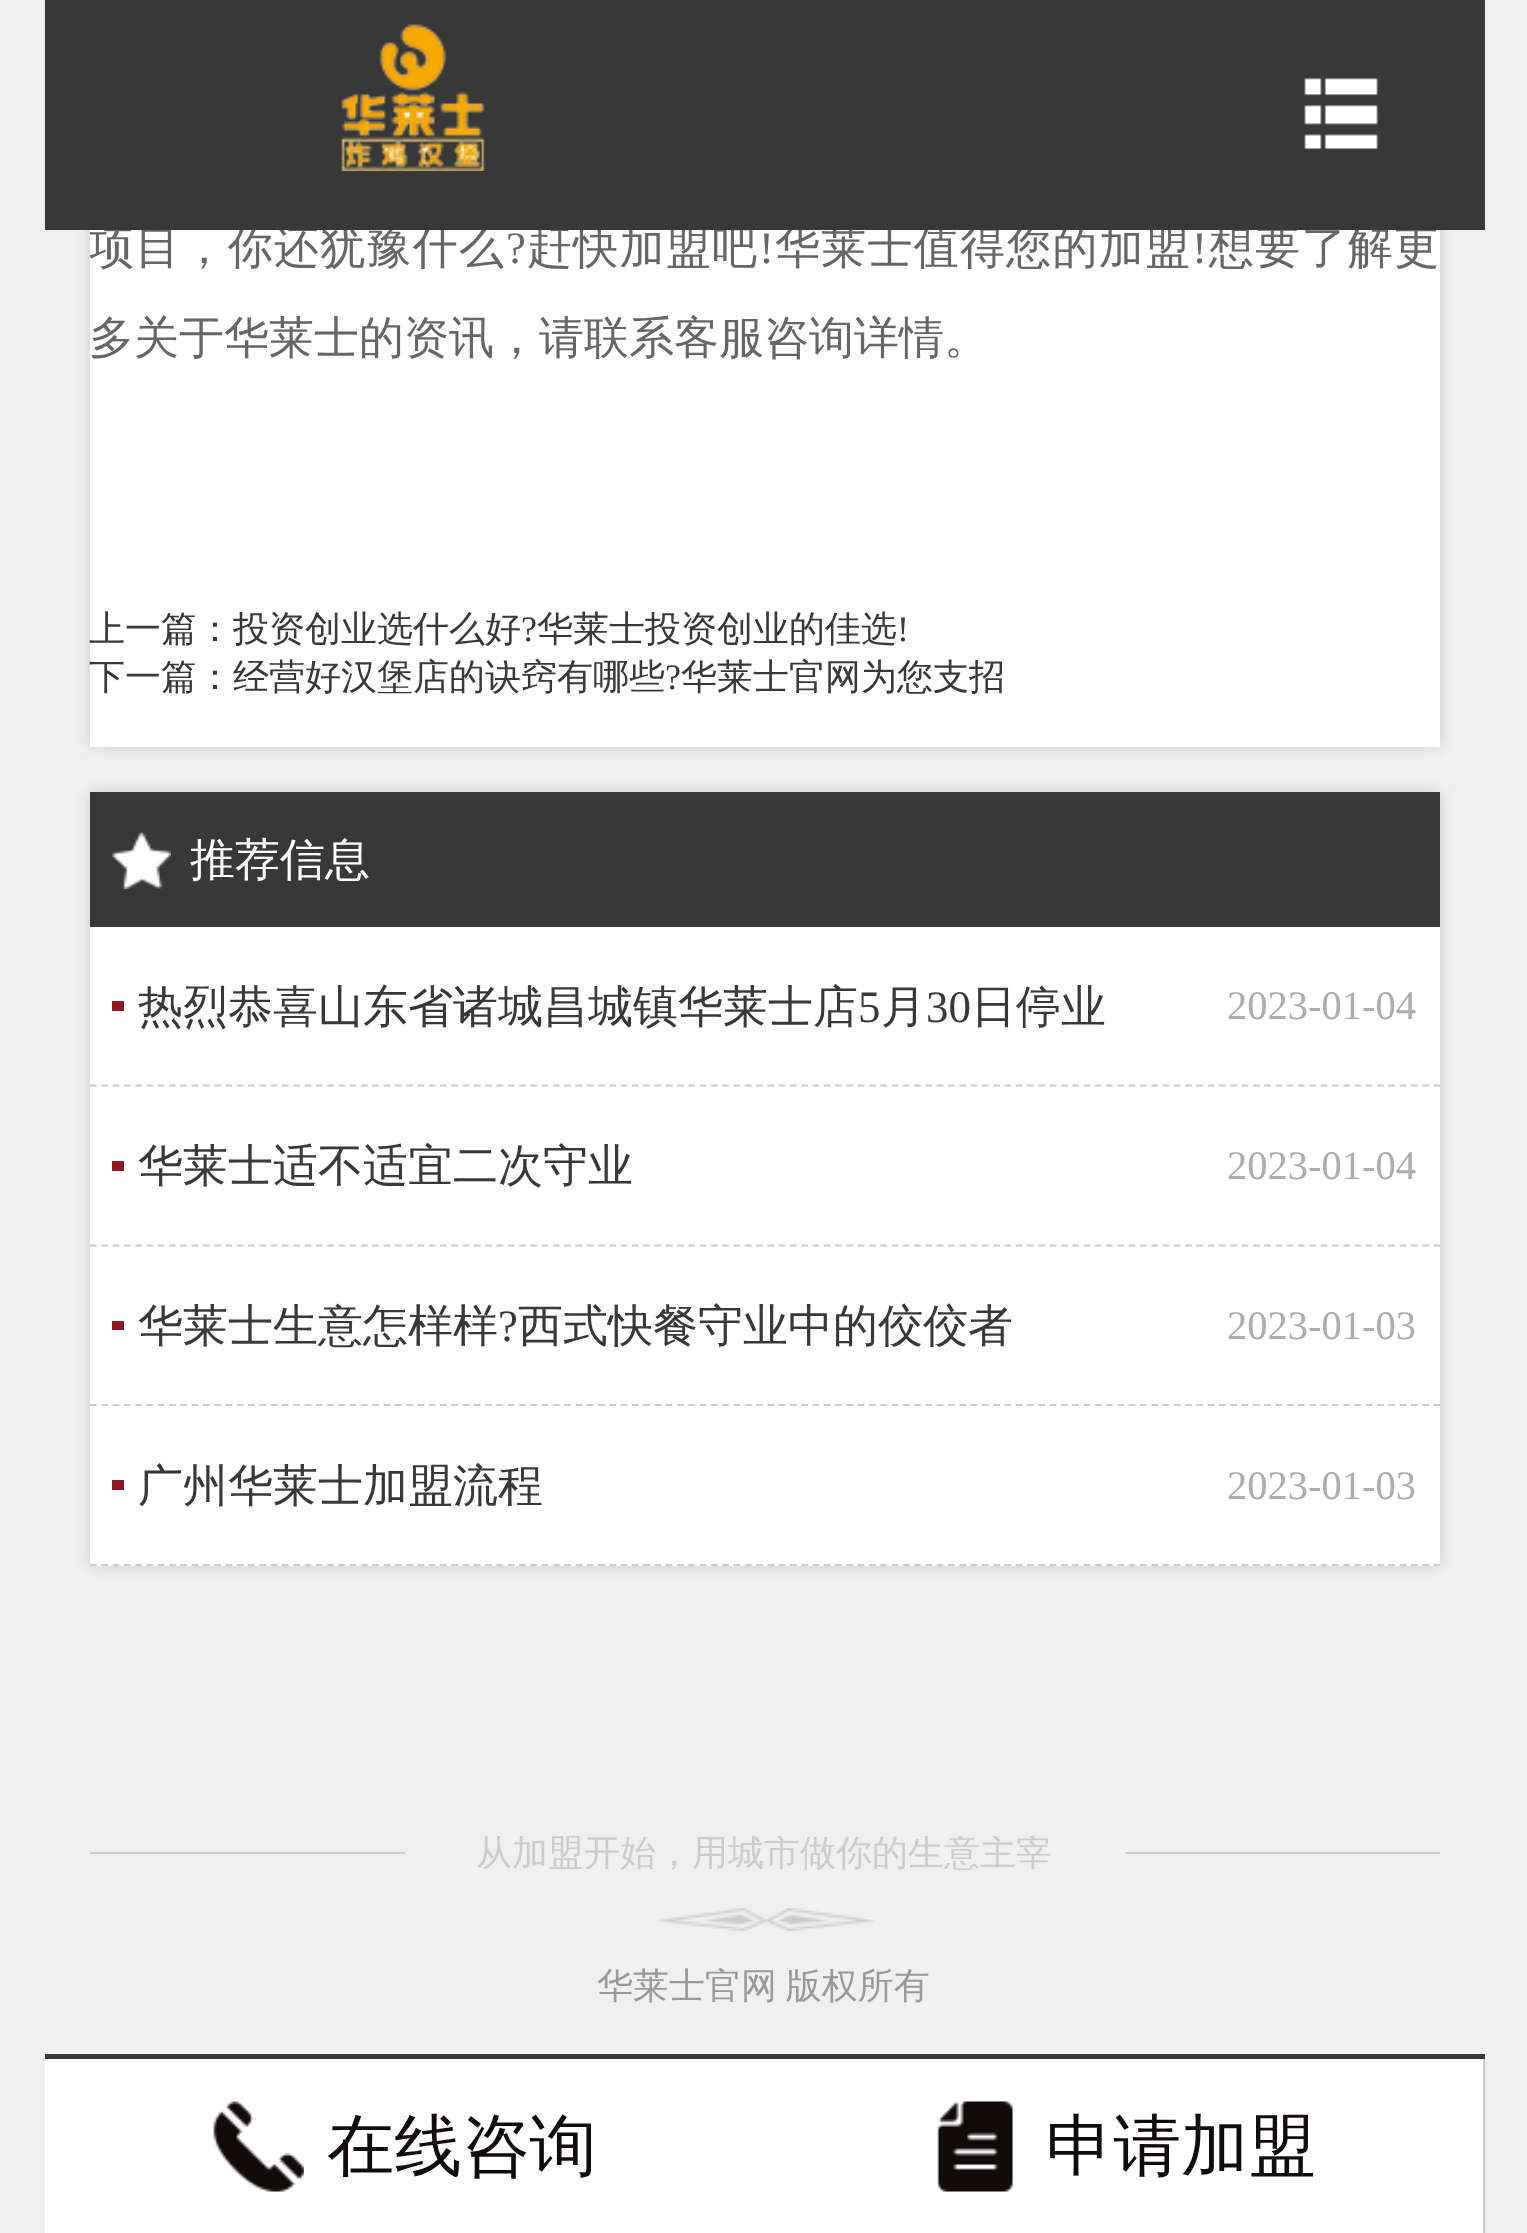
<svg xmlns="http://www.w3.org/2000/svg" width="1527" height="2233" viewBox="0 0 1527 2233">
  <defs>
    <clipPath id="clip1"><rect x="90" y="0" width="1350" height="608"/></clipPath>
    <clipPath id="clip2"><rect x="90" y="1836" width="1350" height="36"/></clipPath>
  </defs>
  <rect width="100%" height="100%" fill="rgb(240,240,240)"/>
  <rect x="90" y="-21" width="1350" height="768" fill="rgb(204,204,204)" filter="blur(7px)"/>
  <rect x="90" y="230" width="1350" height="517" fill="rgb(255,255,255)"/>
  <g clip-path="url(#clip1)">
    <text x="89" y="263" font-family="WenQuanYi Zen Hei" font-size="45" font-weight="500" letter-spacing="1.25" fill="rgb(102,102,102)">项目，你还犹豫什么</text>
  </g>
  <g font-family="WenQuanYi Zen Hei" font-size="45" font-weight="500" letter-spacing="1.25" fill="rgb(102,102,102)">
    <text x="527" y="263">赶快加盟吧</text>
    <text x="775" y="263">华莱士值得您的加盟</text>
    <text x="1209" y="263">想要了解更</text>
  </g>
  <rect x="45" y="0" width="1440" height="230" fill="rgb(56,56,56)"/>
  <image x="341" y="24" width="144" height="147" href="pic1.png"/>
  <image x="1304" y="78" width="74" height="72" href="pic2.png"/>
  <g font-family="Liberation Serif" font-size="45" letter-spacing="1.25" fill="rgb(102,102,102)">
    <text x="506" y="263">?</text>
    <text x="759" y="263">!</text>
    <text x="1192" y="263">!</text>
  </g>
  <text x="89" y="353" font-family="WenQuanYi Zen Hei" font-size="45" font-weight="500" fill="rgb(102,102,102)">多关于华莱士的资讯，请联系客服咨询详情。</text>
  <text x="89" y="641" font-family="WenQuanYi Zen Hei" font-size="36" font-weight="500" fill="rgb(56,56,56)">上一篇：投资创业选什么好</text>
  <text x="521" y="641" font-family="Liberation Serif" font-size="36" fill="rgb(56,56,56)">?</text>
  <text x="537" y="641" font-family="WenQuanYi Zen Hei" font-size="36" font-weight="500" fill="rgb(56,56,56)">华莱士投资创业的佳选</text>
  <text x="897" y="641" font-family="Liberation Serif" font-size="36" fill="rgb(56,56,56)">!</text>
  <text x="89" y="689" font-family="WenQuanYi Zen Hei" font-size="36" font-weight="500" fill="rgb(56,56,56)">下一篇：经营好汉堡店的诀窍有哪些</text>
  <text x="665" y="689" font-family="Liberation Serif" font-size="36" fill="rgb(56,56,56)">?</text>
  <text x="681" y="689" font-family="WenQuanYi Zen Hei" font-size="36" font-weight="500" fill="rgb(56,56,56)">华莱士官网为您支招</text>
  <rect x="90" y="792" width="1350" height="774" fill="rgb(204,204,204)" filter="blur(7px)"/>
  <rect x="90" y="927" width="1350" height="639" fill="rgb(255,255,255)"/>
  <rect x="90" y="792" width="1350" height="135" fill="rgb(56,56,56)"/>
  <image x="112" y="832" width="59" height="57" href="pic3.png"/>
  <text x="190" y="875" font-family="WenQuanYi Zen Hei" font-size="45" font-weight="500" fill="rgb(255,255,255)">推荐信息</text>
  <path d="M90 1085.5H1440" fill="none" stroke="rgb(204,204,204)" stroke-width="2.2" stroke-dasharray="6.75 4.54"/>
  <rect x="112" y="1001" width="12" height="10" fill="rgb(141,26,33)"/>
  <text x="138" y="1022" font-family="WenQuanYi Zen Hei" font-size="45" font-weight="500" fill="rgb(56,56,56)">热烈恭喜山东省诸城昌城镇华莱士店</text>
  <text x="858" y="1022" font-family="Liberation Serif" font-size="45" fill="rgb(56,56,56)">5</text>
  <text x="881" y="1022" font-family="WenQuanYi Zen Hei" font-size="45" font-weight="500" fill="rgb(56,56,56)">月</text>
  <text x="926" y="1022" font-family="Liberation Serif" font-size="45" fill="rgb(56,56,56)">30</text>
  <text x="971" y="1022" font-family="WenQuanYi Zen Hei" font-size="45" font-weight="500" fill="rgb(56,56,56)">日停业</text>
  <text x="1227" y="1019" font-family="Liberation Serif" font-size="40.5" fill="rgb(173,173,173)">2023-01-04</text>
  <path d="M90 1245.5H1440" fill="none" stroke="rgb(204,204,204)" stroke-width="2.2" stroke-dasharray="6.75 4.54"/>
  <rect x="112" y="1161" width="12" height="10" fill="rgb(141,26,33)"/>
  <text x="138" y="1181" font-family="WenQuanYi Zen Hei" font-size="45" font-weight="500" fill="rgb(56,56,56)">华莱士适不适宜二次守业</text>
  <text x="1227" y="1179" font-family="Liberation Serif" font-size="40.5" fill="rgb(173,173,173)">2023-01-04</text>
  <path d="M90 1405H1440" fill="none" stroke="rgb(204,204,204)" stroke-width="2.2" stroke-dasharray="6.75 4.54"/>
  <rect x="112" y="1321" width="12" height="9" fill="rgb(141,26,33)"/>
  <text x="138" y="1341" font-family="WenQuanYi Zen Hei" font-size="45" font-weight="500" fill="rgb(56,56,56)">华莱士生意怎样样</text>
  <text x="498" y="1341" font-family="Liberation Serif" font-size="45" fill="rgb(56,56,56)">?</text>
  <text x="518" y="1341" font-family="WenQuanYi Zen Hei" font-size="45" font-weight="500" fill="rgb(56,56,56)">西式快餐守业中的佼佼者</text>
  <text x="1227" y="1339" font-family="Liberation Serif" font-size="40.5" fill="rgb(173,173,173)">2023-01-03</text>
  <path d="M90 1565H1440" fill="none" stroke="rgb(204,204,204)" stroke-width="2.2" stroke-dasharray="6.75 4.54"/>
  <rect x="112" y="1480" width="12" height="10" fill="rgb(141,26,33)"/>
  <text x="138" y="1501" font-family="WenQuanYi Zen Hei" font-size="45" font-weight="500" fill="rgb(56,56,56)">广州华莱士加盟流程</text>
  <text x="1227" y="1499" font-family="Liberation Serif" font-size="40.5" fill="rgb(173,173,173)">2023-01-03</text>
  <rect x="90" y="1852" width="315" height="2" fill="rgb(204,204,204)"/>
  <g clip-path="url(#clip2)">
    <text x="476" y="1865" font-family="WenQuanYi Zen Hei" font-size="36" font-weight="500" fill="rgb(204,204,204)">从加盟开始，用城市做你的生意主宰</text>
  </g>
  <rect x="1125" y="1852" width="315" height="2" fill="rgb(204,204,204)"/>
  <image x="658" y="1908" width="217" height="23" href="pic4.png"/>
  <text x="597" y="1998" word-spacing="-2" font-family="WenQuanYi Zen Hei" font-size="36" font-weight="500" fill="rgb(153,153,153)">华莱士官网 版权所有</text>
  <rect x="45" y="2059" width="1438" height="174" fill="rgb(255,255,255)"/>
  <rect x="45" y="2054" width="1440" height="5" fill="rgb(56,56,56)"/>
  <image x="213" y="2101" width="91" height="91" href="pic5.png"/>
  <text x="327" y="2169" font-family="WenQuanYi Zen Hei" font-size="67.5" font-weight="500" fill="rgb(18,11,11)">在线咨询</text>
  <rect x="1483" y="2059" width="2" height="174" fill="rgb(204,204,204)"/>
  <image x="937" y="2101" width="77" height="91" href="pic6.png"/>
  <text x="1046" y="2169" font-family="WenQuanYi Zen Hei" font-size="67.5" font-weight="500" fill="rgb(18,11,11)">申请加盟</text>
</svg>
